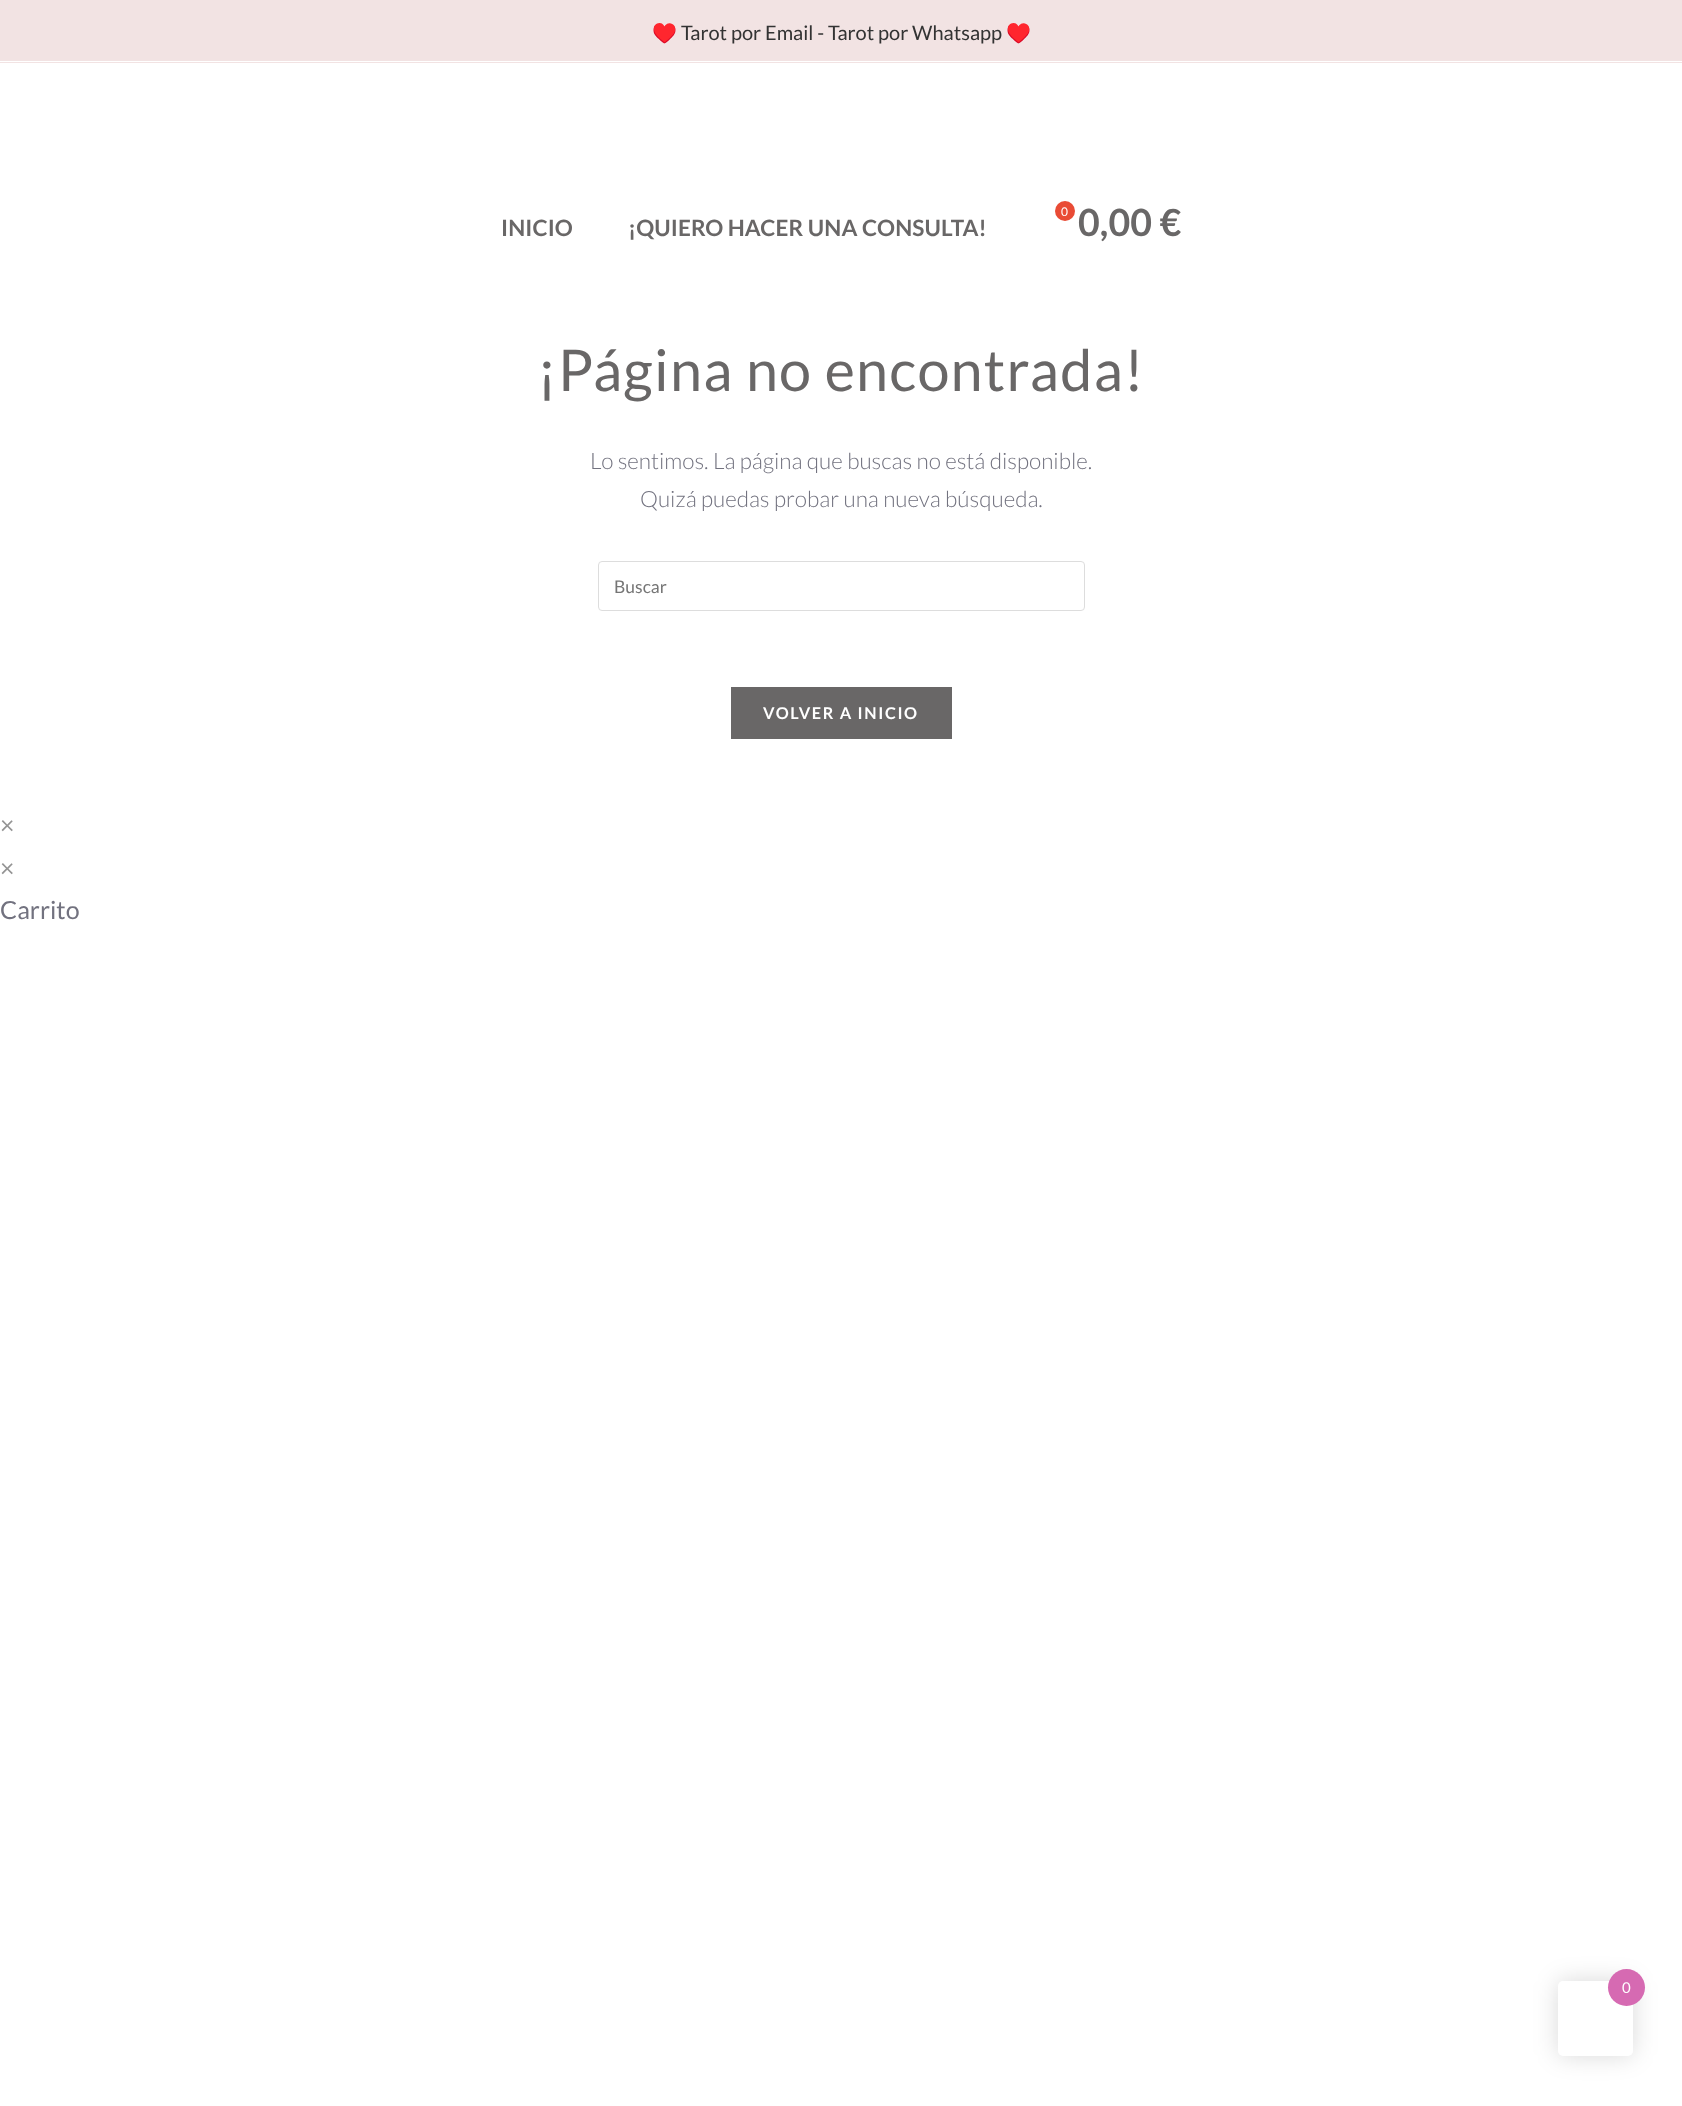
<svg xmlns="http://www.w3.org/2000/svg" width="1682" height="2106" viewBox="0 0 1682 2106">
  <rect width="100%" height="100%" fill="rgb(255,255,255)"/>
  <rect x="0" y="0" width="1682" height="63" fill="rgb(242,227,227)"/>
  <rect x="0" y="61" width="1682" height="1" fill="rgb(255,255,255)"/>
  <text x="652" y="40" font-family="Noto Color Emoji" font-size="20" fill="rgb(51,51,51)">♥️</text>
  <text x="681" y="40" font-family="Lato" font-size="20" fill="rgb(51,51,51)">Tarot por Email - Tarot por Whatsapp</text>
  <text x="1006" y="40" font-family="Noto Color Emoji" font-size="20" fill="rgb(51,51,51)">♥️</text>
  <g font-family="Lato" font-size="22.5" font-weight="bold" letter-spacing="0.1" fill="rgb(105,103,103)">
    <text x="501" y="236">INICIO</text>
    <text x="628" y="236">¡QUIERO HACER UNA CONSULTA!</text>
  </g>
  <circle cx="1065" cy="211" r="10" fill="rgb(233,75,53)"/>
  <text x="1061" y="216" font-family="Lato" font-size="12" letter-spacing="0.1" fill="rgb(255,255,255)">0</text>
  <text x="1078" y="236" font-family="Lato" font-size="37.5" font-weight="bold" letter-spacing="0.1" fill="rgb(105,103,103)">0,00 €</text>
  <text x="537" y="391" font-family="Lato" font-size="57.5" letter-spacing="1.25" fill="rgb(105,103,103)">¡Página no encontrada!</text>
  <g font-family="Lato" font-size="22.5" font-weight="300" fill="rgb(114,114,127)">
    <text x="590" y="469">Lo sentimos. La página que buscas no está disponible.</text>
    <text x="640" y="507">Quizá puedas probar una nueva búsqueda.</text>
  </g>
  <rect x="598.5" y="561.5" width="486" height="49" rx="3.5" fill="none" stroke="rgb(221,221,221)"/>
  <text x="614" y="593" font-family="Lato" font-size="17.5" fill="rgb(117,117,117)">Buscar</text>
  <rect x="731" y="687" width="221" height="52" fill="rgb(105,103,103)"/>
  <text x="763" y="719" font-family="Lato" font-size="16.25" font-weight="bold" letter-spacing="1.6" fill="rgb(255,255,255)">VOLVER A INICIO</text>
  <g font-family="Lato" font-size="25" fill="rgb(148,148,148)">
    <text>
      <tspan x="0" y="834">×</tspan>
      <tspan x="0" y="877">×</tspan>
    </text>
  </g>
  <text x="0" y="919" font-family="Lato" font-size="25" fill="rgb(114,114,127)">Carrito</text>
  <rect x="1558" y="1981" width="75" height="75" rx="5" fill="rgba(0,0,0,0.15)" filter="blur(12.5px)"/>
  <rect x="1558" y="1981" width="75" height="75" rx="5" fill="rgb(255,255,255)"/>
  <circle cx="1626.5" cy="1987.5" r="18.5" fill="rgb(214,106,178)"/>
  <text x="1622" y="1993" font-family="Lato" font-size="15" fill="rgb(255,255,255)">0</text>
</svg>
